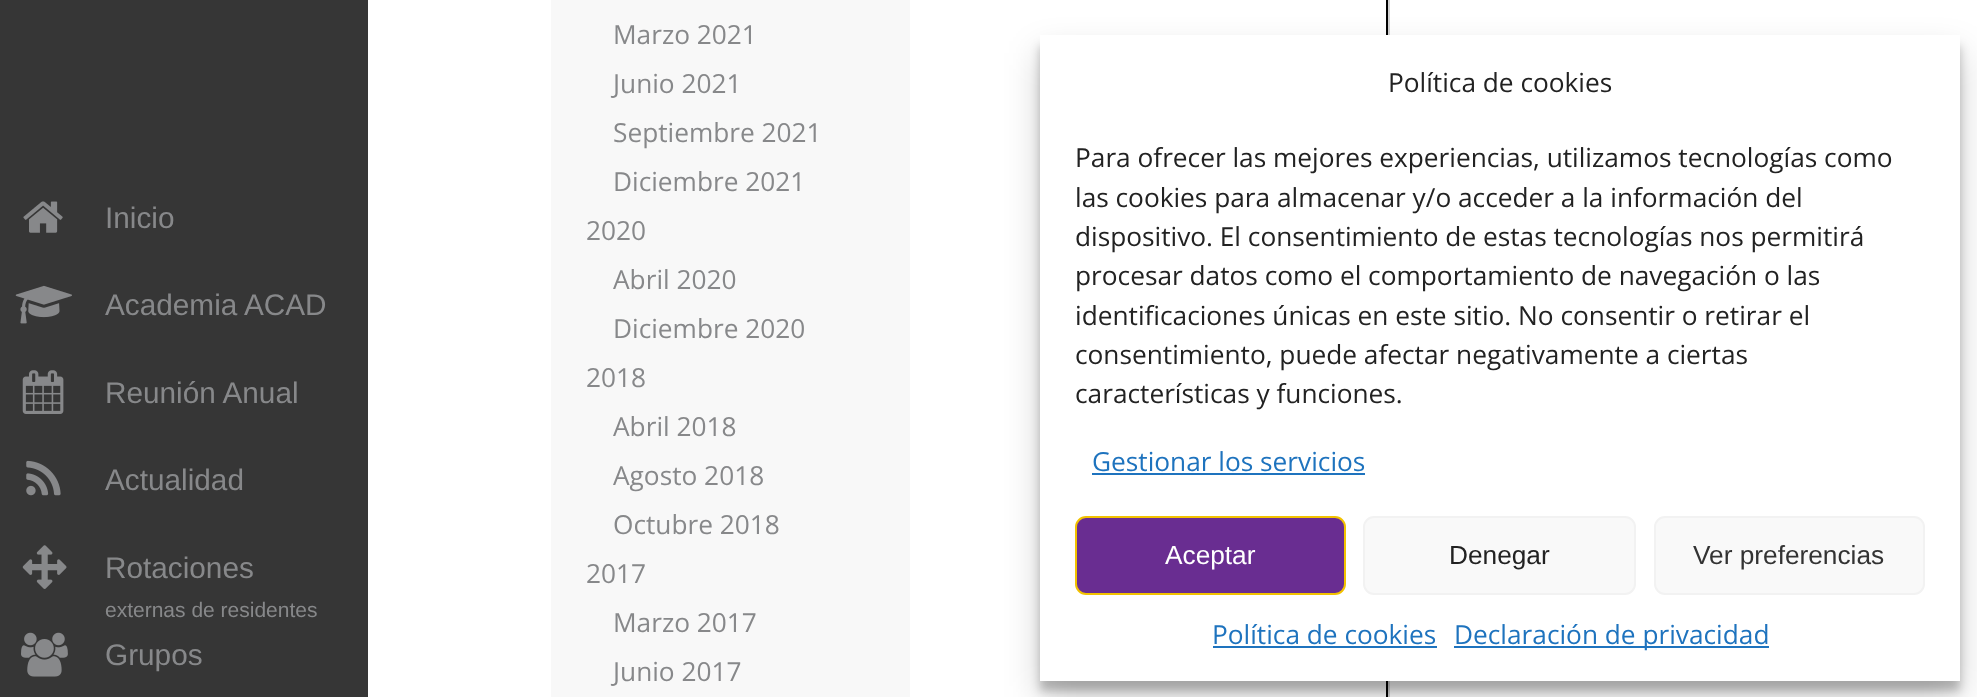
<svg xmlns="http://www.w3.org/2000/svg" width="1977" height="697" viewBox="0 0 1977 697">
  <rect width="100%" height="100%" fill="rgb(255,255,255)"/>
  <rect x="0" y="0" width="368" height="697" fill="rgb(54,54,54)"/>
  <image x="23" y="201" width="40" height="32" href="pic1.png"/>
  <text x="105" y="228" font-family="Liberation Sans" font-size="29.75" fill="rgb(135,136,138)">Inicio</text>
  <image x="15" y="285" width="57" height="39" href="pic2.png"/>
  <text x="105" y="315" font-family="Liberation Sans" font-size="29.75" fill="rgb(135,136,138)">Academia ACAD</text>
  <image x="22" y="370" width="42" height="44" href="pic3.png"/>
  <text x="105" y="403" font-family="Liberation Sans" font-size="29.75" fill="rgb(135,136,138)">Reunión Anual</text>
  <image x="26" y="460" width="35" height="36" href="pic4.png"/>
  <text x="105" y="490" font-family="Liberation Sans" font-size="29.75" fill="rgb(135,136,138)">Actualidad</text>
  <image x="22" y="545" width="45" height="44" href="pic5.png"/>
  <text x="105" y="578" font-family="Liberation Sans" font-size="29.75" fill="rgb(135,136,138)">Rotaciones</text>
  <text x="105" y="617" font-family="Liberation Sans" font-size="21" fill="rgb(135,136,138)">externas de residentes</text>
  <image x="21" y="632" width="47" height="45" href="pic6.png"/>
  <text x="105" y="665" font-family="Liberation Sans" font-size="29.75" fill="rgb(135,136,138)">Grupos</text>
  <rect x="551" y="0" width="359" height="697" fill="rgb(248,248,248)"/>
  <g font-family="Open Sans" font-size="26.25" fill="rgb(135,136,138)">
    <text>
      <tspan x="613" y="44">Marzo 2021</tspan>
      <tspan x="613" y="93">Junio 2021</tspan>
      <tspan x="613" y="142">Septiembre 2021</tspan>
      <tspan x="613" y="191">Diciembre 2021</tspan>
    </text>
    <text x="586" y="240">2020</text>
    <text>
      <tspan x="613" y="289">Abril 2020</tspan>
      <tspan x="613" y="338">Diciembre 2020</tspan>
    </text>
    <text x="586" y="387">2018</text>
    <text>
      <tspan x="613" y="436">Abril 2018</tspan>
      <tspan x="613" y="485">Agosto 2018</tspan>
      <tspan x="613" y="534">Octubre 2018</tspan>
    </text>
    <text x="586" y="583">2017</text>
    <text>
      <tspan x="613" y="632">Marzo 2017</tspan>
      <tspan x="613" y="681">Junio 2017</tspan>
    </text>
  </g>
  <rect x="1388" y="0" width="2" height="697" fill="rgb(211,211,211)"/>
  <rect x="1387" y="-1" width="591" height="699" fill="none" stroke="rgb(0,0,0)" stroke-width="2"/>
  <rect x="1040" y="46" width="920" height="645" fill="rgba(0,0,0,0.23)" filter="blur(5px)"/>
  <rect x="1040" y="53" width="920" height="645" fill="rgba(0,0,0,0.19)" filter="blur(17.5px)"/>
  <rect x="1040" y="35" width="920" height="646" fill="rgb(255,255,255)"/>
  <g font-family="Open Sans" font-size="26.25" fill="rgb(34,34,34)">
    <text x="1388" y="92">Política de cookies</text>
    <text>
      <tspan x="1075" y="167">Para ofrecer las mejores experiencias, utilizamos tecnologías como</tspan>
      <tspan x="1075" y="207">las cookies para almacenar y/o acceder a la información del</tspan>
      <tspan x="1075" y="246">dispositivo. El consentimiento de estas tecnologías nos permitirá</tspan>
      <tspan x="1075" y="285">procesar datos como el comportamiento de navegación o las</tspan>
      <tspan x="1075" y="325">identificaciones únicas en este sitio. No consentir o retirar el</tspan>
      <tspan x="1075" y="364">consentimiento, puede afectar negativamente a ciertas</tspan>
      <tspan x="1075" y="403">características y funciones.</tspan>
    </text>
  </g>
  <text x="1092" y="471" font-family="Open Sans" font-size="26.25" fill="rgb(30,115,190)">Gestionar los servicios</text>
  <rect x="1092" y="473" width="273" height="2" fill="rgb(30,115,190)"/>
  <rect x="1076" y="517" width="269" height="77" rx="10" fill="rgb(105,45,145)" stroke="rgb(242,194,0)" stroke-width="2"/>
  <text x="1165" y="564" font-family="Liberation Sans" font-size="26.25" fill="rgb(255,255,255)">Aceptar</text>
  <rect x="1364" y="517" width="271" height="77" rx="10" fill="rgb(249,249,249)" stroke="rgb(242,242,242)" stroke-width="2"/>
  <text x="1449" y="564" font-family="Liberation Sans" font-size="26.25" fill="rgb(34,34,34)">Denegar</text>
  <rect x="1655" y="517" width="269" height="77" rx="10" fill="rgb(249,249,249)" stroke="rgb(242,242,242)" stroke-width="2"/>
  <text x="1693" y="564" font-family="Liberation Sans" font-size="26.25" fill="rgb(51,51,51)">Ver preferencias</text>
  <text x="1212" y="644" font-family="Open Sans" font-size="26.25" fill="rgb(30,115,190)">Política de cookies</text>
  <rect x="1213" y="646" width="224" height="2" fill="rgb(30,115,190)"/>
  <rect x="1454" y="646" width="315" height="2" fill="rgb(30,115,190)"/>
  <text x="1454" y="644" font-family="Open Sans" font-size="26.25" fill="rgb(30,115,190)">Declaración de privacidad</text>
</svg>
